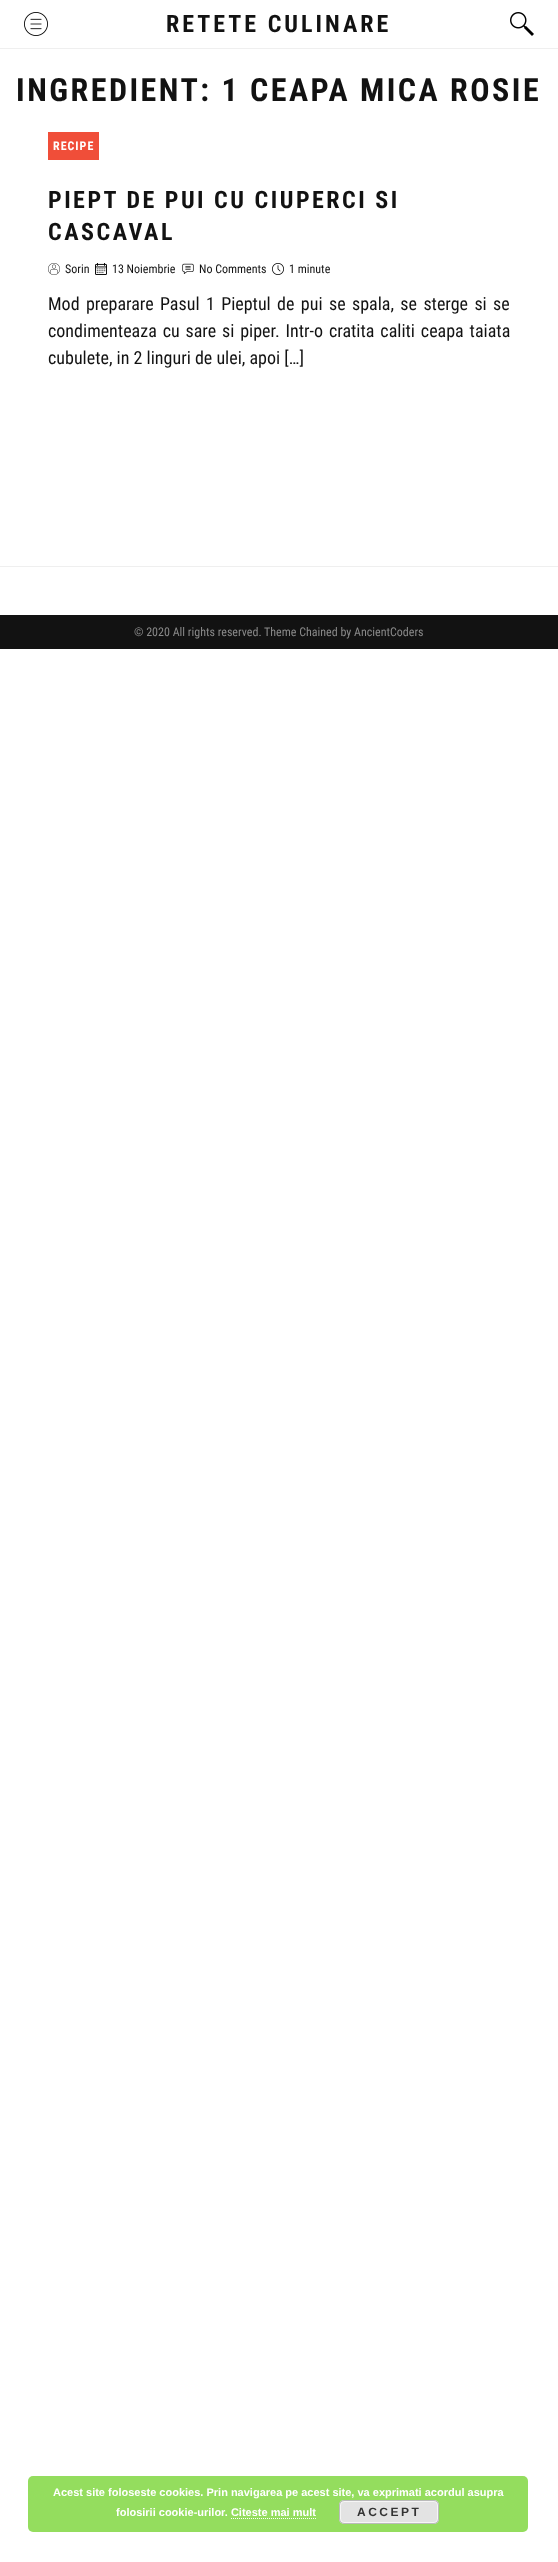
<svg xmlns="http://www.w3.org/2000/svg" width="558" height="2562" viewBox="0 0 558 2562">
  <rect width="100%" height="100%" fill="rgb(255,255,255)"/>
  <rect x="0" y="48" width="558" height="1" fill="rgb(239,239,239)"/>
  <image x="24" y="12" width="24" height="24" href="pic1.png"/>
  <text x="166" y="32" font-family="Roboto Condensed" font-size="24" font-weight="bold" letter-spacing="3" fill="rgb(18,18,18)">RETETE CULINARE</text>
  <image x="510" y="12" width="24" height="24" href="pic2.png"/>
  <text x="16" y="101" font-family="Roboto Condensed" font-size="32" font-weight="bold" letter-spacing="2.5" fill="rgb(18,18,18)">INGREDIENT: 1 CEAPA MICA ROSIE</text>
  <rect x="48" y="132" width="51" height="28" fill="rgb(240,78,57)"/>
  <text x="53" y="150" font-family="Roboto Condensed" font-size="12" font-weight="bold" letter-spacing="1" fill="rgb(255,255,255)">RECIPE</text>
  <g font-family="Roboto Condensed" font-size="24" font-weight="bold" letter-spacing="2.5" fill="rgb(18,18,18)">
    <text>
      <tspan x="48" y="208">PIEPT DE PUI CU CIUPERCI SI</tspan>
      <tspan x="48" y="240">CASCAVAL</tspan>
    </text>
  </g>
  <image x="48" y="263" width="12" height="12" href="pic3.png"/>
  <text x="65" y="273" font-family="Roboto Condensed" font-size="12" fill="rgb(18,18,18)">Sorin</text>
  <image x="95" y="263" width="12" height="12" href="pic4.png"/>
  <text x="112" y="273" font-family="Roboto Condensed" font-size="12" fill="rgb(18,18,18)">13 Noiembrie</text>
  <image x="182" y="263" width="12" height="11" href="pic5.png"/>
  <text x="199" y="273" font-family="Roboto Condensed" font-size="12" fill="rgb(18,18,18)">No Comments</text>
  <image x="272" y="263" width="12" height="12" href="pic6.png"/>
  <text x="289" y="273" font-family="Roboto Condensed" font-size="12" fill="rgb(18,18,18)">1 minute</text>
  <g font-family="Roboto Condensed" font-size="18" fill="rgb(18,18,18)">
    <text>
      <tspan x="48" y="310" word-spacing="2.25">Mod preparare Pasul 1 Pieptul de pui se spala, se sterge si se</tspan>
      <tspan x="48" y="337" word-spacing="1.75">condimenteaza cu sare si piper. Intr-o cratita caliti ceapa taiata</tspan>
      <tspan x="48" y="364">cubulete, in 2 linguri de ulei, apoi […]</tspan>
    </text>
  </g>
  <rect x="0" y="566" width="558" height="1" fill="rgb(239,239,239)"/>
  <rect x="0" y="615" width="558" height="34" fill="rgb(18,18,18)"/>
  <text x="134" y="636" font-family="Roboto Condensed" font-size="12" fill="rgb(137,137,137)">© 2020 All rights reserved. Theme Chained by AncientCoders</text>
  <rect x="28" y="2476" width="500" height="56" rx="5" fill="rgb(148,221,94)"/>
  <g font-family="Liberation Sans" font-size="11" font-weight="bold" fill="rgb(255,255,255)">
    <text x="53" y="2496">Acest site foloseste cookies. Prin navigarea pe acest site, va exprimati acordul asupra</text>
    <text x="116" y="2516">folosirii cookie-urilor. Citeste mai mult</text>
  </g>
  <rect x="339" y="2500" width="100" height="24" rx="5" fill="rgb(227,227,227)"/>
  <rect x="340.5" y="2501.5" width="97" height="21" rx="3.5" fill="none" stroke="rgb(246,246,246)"/>
  <rect x="339.5" y="2500.5" width="99" height="23" rx="4.5" fill="none" stroke="rgb(187,187,187)"/>
  <text x="357" y="2516" font-family="Liberation Sans" font-size="12" font-weight="bold" letter-spacing="2.5" fill="rgb(51,51,51)">ACCEPT</text>
  <path d="M231 2518.5H316" fill="none" stroke="rgb(255,255,255)" stroke-dasharray="1 1"/>
</svg>
